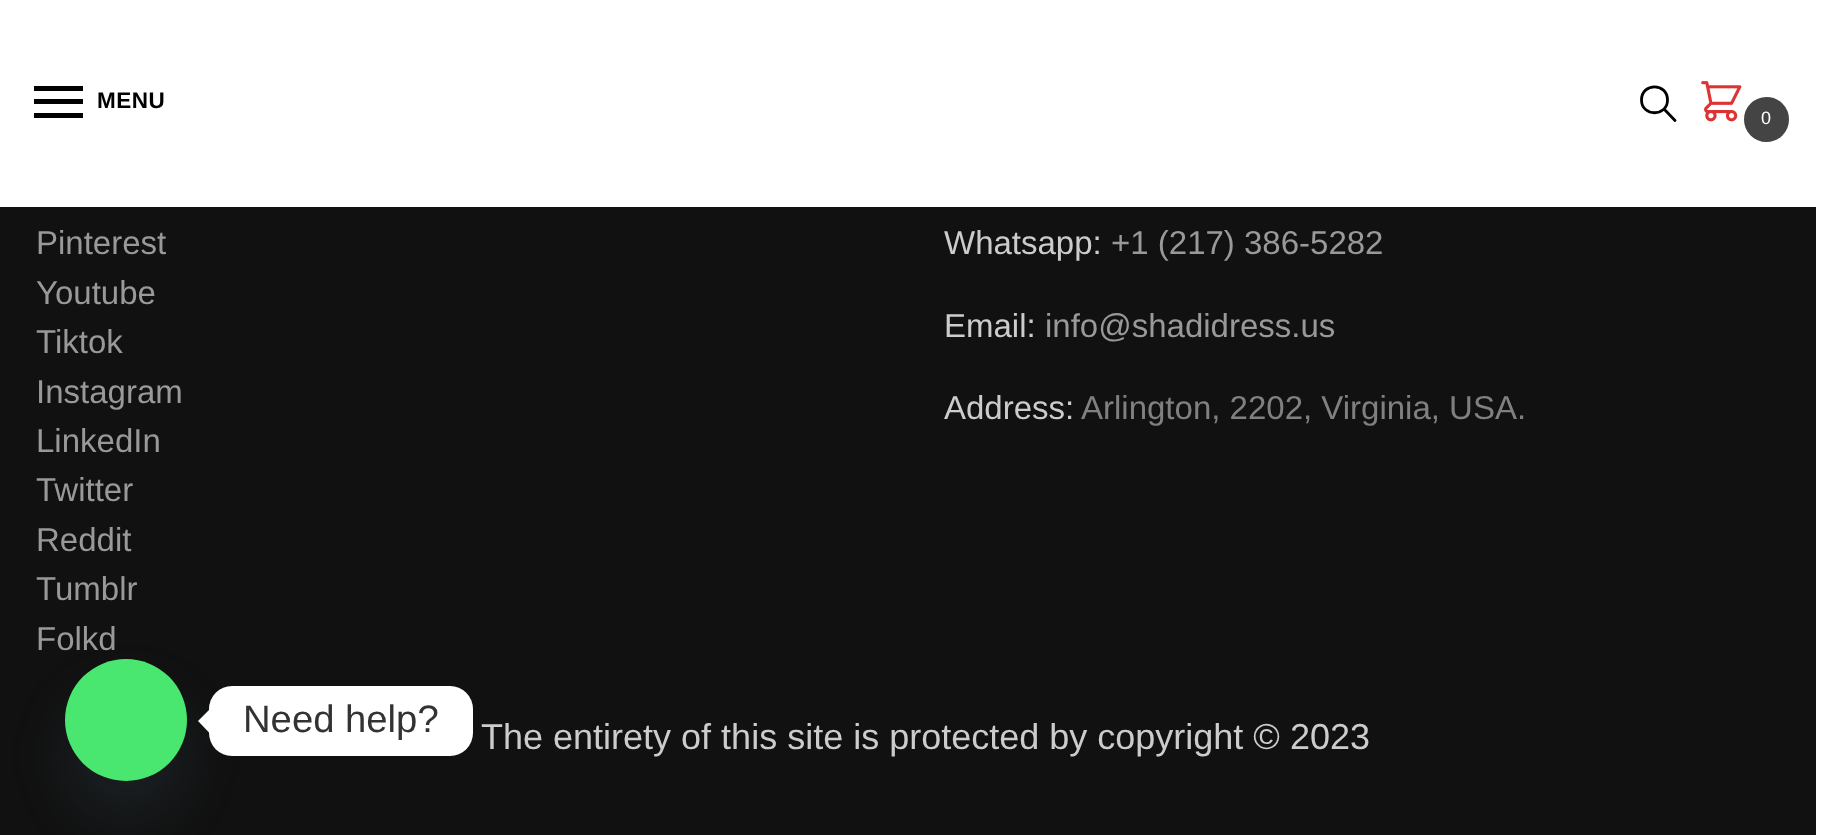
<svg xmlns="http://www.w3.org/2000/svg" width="1848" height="835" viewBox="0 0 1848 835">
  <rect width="100%" height="100%" fill="rgb(17,17,17)"/>
  <rect x="0" y="0" width="1816" height="207" fill="rgb(255,255,255)"/>
  <rect x="34" y="86" width="49" height="5" fill="rgb(0,0,0)"/>
  <rect x="34" y="99" width="49" height="5" fill="rgb(0,0,0)"/>
  <text x="97" y="108" font-family="Liberation Sans" font-size="22.5" font-weight="bold" letter-spacing="0.5" fill="rgb(0,0,0)">MENU</text>
  <rect x="34" y="113" width="49" height="5" fill="rgb(0,0,0)"/>
  <path d="M1675 120.5L1664 109M1667.5 100C1667.5 117 1641.5 117 1641.5 100C1641.5 82.5 1667.5 82.5 1667.5 100Z" fill="none" stroke="rgb(0,0,0)" stroke-width="2.8" stroke-linecap="round" stroke-linejoin="round"/>
  <image x="1701" y="81" width="41" height="41" href="pic1.png"/>
  <circle cx="1766.5" cy="119.5" r="21.5" fill="rgb(68,68,68)" stroke="rgb(68,68,68)" stroke-width="2"/>
  <text x="1761" y="124" font-family="Liberation Sans" font-size="18" fill="rgb(255,255,255)">0</text>
  <rect x="1816" y="0" width="32" height="835" fill="rgb(255,255,255)"/>
  <g font-family="Liberation Sans" font-size="33" fill="rgb(153,153,153)">
    <text>
      <tspan x="36" y="254">Pinterest</tspan>
      <tspan x="36" y="304">Youtube</tspan>
      <tspan x="36" y="353">Tiktok</tspan>
      <tspan x="36" y="403">Instagram</tspan>
      <tspan x="36" y="452">LinkedIn</tspan>
      <tspan x="36" y="501">Twitter</tspan>
      <tspan x="36" y="551">Reddit</tspan>
      <tspan x="36" y="600">Tumblr</tspan>
      <tspan x="36" y="650">Folkd</tspan>
    </text>
  </g>
  <text x="944" y="254" font-family="Liberation Sans" font-size="33" fill="rgb(204,204,204)">Whatsapp:</text>
  <text x="1111" y="254" font-family="Liberation Sans" font-size="33" fill="rgb(153,153,153)">+1 (217) 386-5282</text>
  <text x="944" y="337" font-family="Liberation Sans" font-size="33" fill="rgb(204,204,204)">Email:</text>
  <text x="1045" y="337" font-family="Liberation Sans" font-size="33" fill="rgb(153,153,153)">info@shadidress.us</text>
  <text x="944" y="419" font-family="Liberation Sans" font-size="33" fill="rgb(204,204,204)">Address:</text>
  <text x="1081" y="419" font-family="Liberation Sans" font-size="33" fill="rgb(128,128,128)">Arlington, 2202, Virginia, USA.</text>
  <text x="481" y="749" font-family="Liberation Sans" font-size="36" fill="rgb(204,204,204)">The entirety of this site is protected by copyright © 2023</text>
  <rect x="65" y="695" width="122" height="122" rx="61" fill="rgba(73,104,126,0.16)" filter="blur(27px)"/>
  <circle cx="126" cy="720" r="61" fill="rgb(73,230,112)"/>
  <rect x="209" y="686" width="264" height="70" rx="23" fill="rgb(255,255,255)"/>
  <path d="M209 710V732.5L198 721Z" fill="rgb(255,255,255)"/>
  <text x="243" y="732" font-family="Liberation Sans" font-size="38.25" fill="rgb(51,51,51)">Need help?</text>
</svg>
